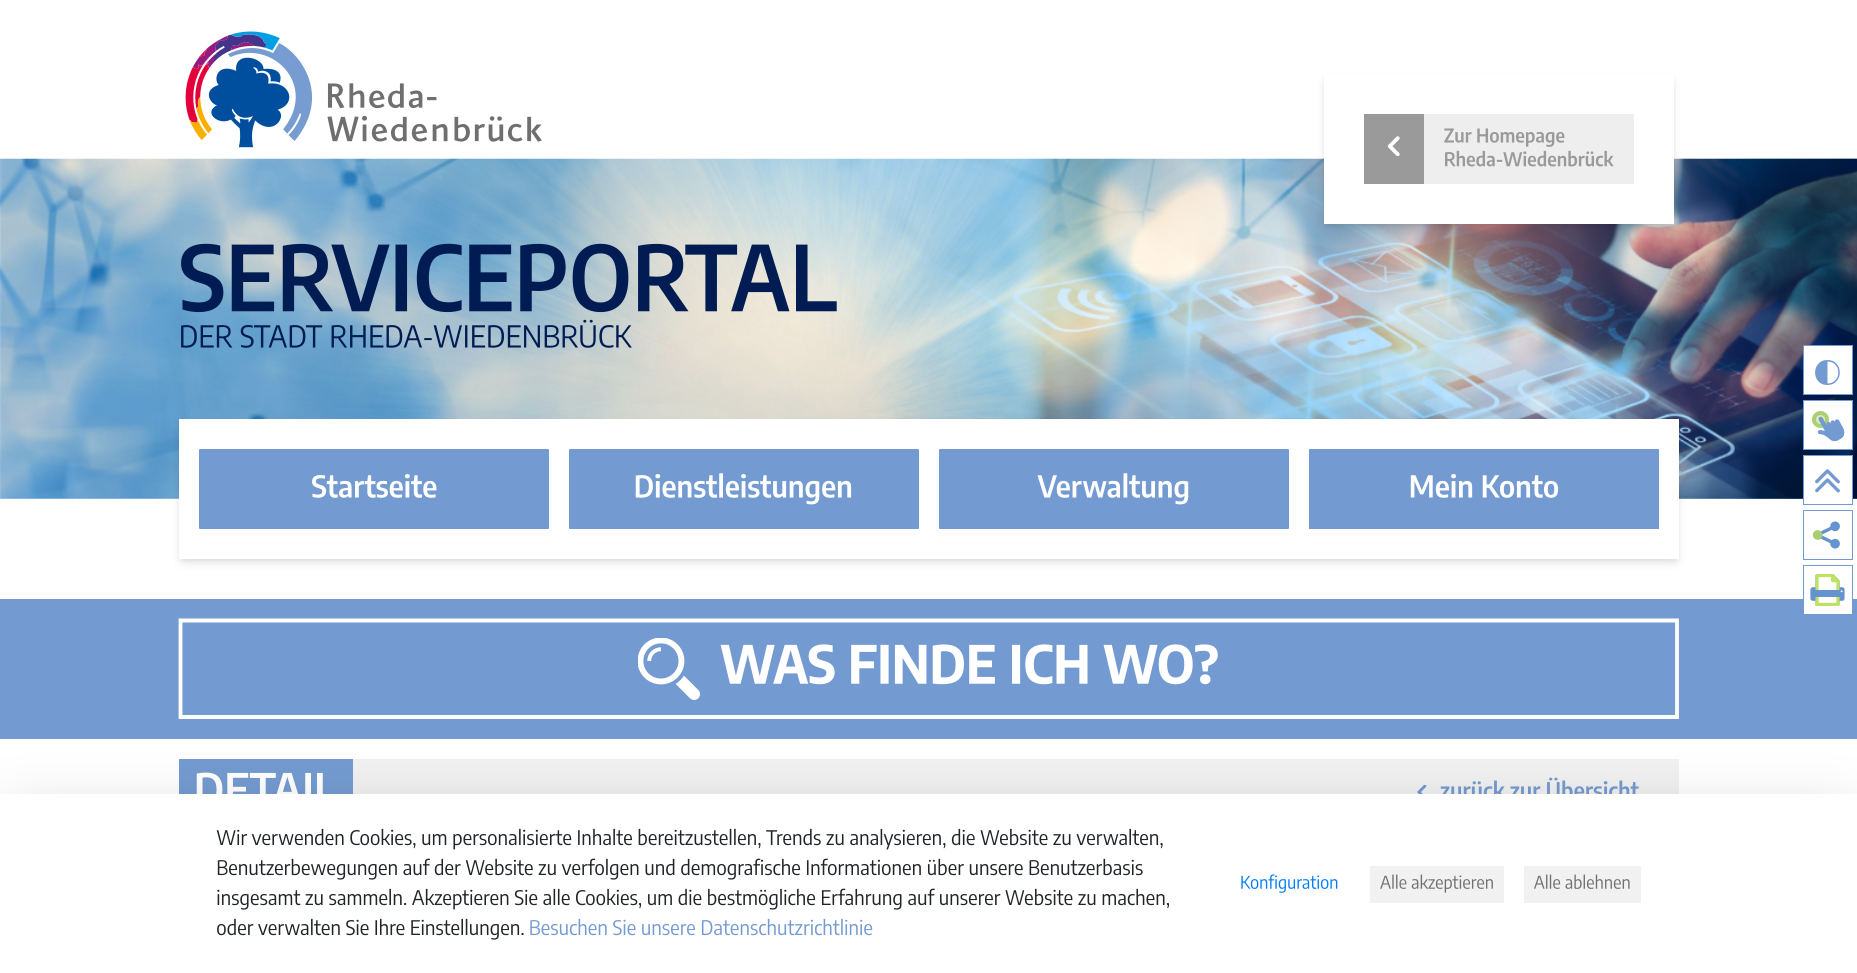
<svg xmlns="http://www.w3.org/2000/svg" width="1857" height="973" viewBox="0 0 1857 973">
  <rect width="100%" height="100%" fill="rgb(255,255,255)"/>
  <image x="185" y="31" width="357" height="117" href="pic1.png"/>
  <image x="0" y="158" width="1857" height="341" href="pic5.png"/>
  <rect x="1325" y="78" width="348" height="147" fill="rgba(0,0,0,0.06)" filter="blur(2.5px)"/>
  <rect x="1325" y="80" width="348" height="148" fill="rgba(0,0,0,0.1)" filter="blur(4px)"/>
  <rect x="1324" y="74" width="350" height="150" fill="rgb(255,255,255)"/>
  <rect x="1364" y="114" width="270" height="70" rx="1" fill="rgb(238,238,238)"/>
  <rect x="1364" y="114" width="60" height="70" fill="rgb(154,154,154)"/>
  <image x="1387" y="136" width="13" height="20" href="pic2.png"/>
  <image x="1444" y="128" width="121" height="19" href="pic3.png"/>
  <image x="1445" y="150" width="169" height="17" href="pic4.png"/>
  <image x="181" y="243" width="656" height="70" href="pic6.png"/>
  <image x="181" y="319" width="451" height="29" href="pic7.png"/>
  <rect x="180" y="423" width="1498" height="137" fill="rgba(0,0,0,0.06)" filter="blur(2.5px)"/>
  <rect x="180" y="425" width="1498" height="138" fill="rgba(0,0,0,0.1)" filter="blur(4px)"/>
  <rect x="179" y="419" width="1500" height="140" fill="rgb(255,255,255)"/>
  <rect x="199" y="449" width="350" height="80" rx="1" fill="rgb(116,155,209)"/>
  <image x="312" y="474" width="125" height="24" href="pic8.png"/>
  <rect x="569" y="449" width="350" height="80" rx="1" fill="rgb(116,155,209)"/>
  <image x="635" y="473" width="217" height="32" href="pic9.png"/>
  <rect x="939" y="449" width="350" height="80" rx="1" fill="rgb(116,155,209)"/>
  <image x="1037" y="473" width="152" height="32" href="pic10.png"/>
  <rect x="1309" y="449" width="350" height="80" fill="rgb(116,155,209)"/>
  <image x="1410" y="474" width="149" height="24" href="pic11.png"/>
  <rect x="1803.5" y="345.5" width="49" height="49" fill="rgb(255,255,255)" stroke="rgb(116,155,209)"/>
  <path d="M1827.5 383.5C1842 383.5 1842 361.5 1827.5 361.5ZM1827.5 385C1811 385 1811 360 1827.5 360C1844 360 1844 385 1827.5 385Z" fill="rgb(116,155,209)"/>
  <rect x="1803.5" y="400.5" width="49" height="49" fill="rgb(255,255,255)" stroke="rgb(116,155,209)"/>
  <image x="1812" y="411" width="33" height="31" href="pic12.png"/>
  <rect x="1804" y="456" width="48" height="43" fill="rgb(255,255,255)"/>
  <rect x="1803.5" y="455.5" width="49" height="49" fill="none" stroke="rgb(116,155,209)"/>
  <image x="1815" y="469" width="25" height="24" href="pic13.png"/>
  <rect x="1803.5" y="510.5" width="49" height="49" fill="none" stroke="rgb(116,155,209)"/>
  <image x="1812" y="521" width="28" height="28" href="pic14.png"/>
  <rect x="0" y="599" width="1857" height="140" fill="rgb(116,155,209)"/>
  <rect x="1804" y="599" width="48" height="15" fill="rgb(255,255,255)"/>
  <rect x="1803.5" y="565.5" width="49" height="49" fill="none" stroke="rgb(116,155,209)"/>
  <image x="1810" y="574" width="35" height="32" href="pic15.png"/>
  <path d="M180.5 620.5H1677V717H180.5Z" fill="none" stroke="rgb(255,255,255)" stroke-width="3.8"/>
  <image x="638" y="638" width="62" height="62" href="pic16.png"/>
  <image x="720" y="644" width="498" height="41" href="pic17.png"/>
  <rect x="353" y="759" width="1326" height="35" fill="rgb(241,241,241)"/>
  <rect x="179" y="759" width="174" height="35" fill="rgb(116,155,209)"/>
  <image x="196" y="772" width="127" height="22" href="pic26.png"/>
  <image x="1417" y="785" width="10" height="9" href="pic27.png"/>
  <image x="1440" y="777" width="199" height="17" href="pic28.png"/>
  <rect x="0" y="814" width="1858" height="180" fill="rgba(0,0,0,0.18)" filter="blur(30px)"/>
  <rect x="0" y="794" width="1857" height="179" fill="rgb(255,255,255)"/>
  <image x="216" y="828" width="947" height="22" href="pic18.png"/>
  <image x="217" y="858" width="926" height="22" href="pic19.png"/>
  <image x="217" y="888" width="953" height="22" href="pic20.png"/>
  <image x="217" y="918" width="307" height="22" href="pic21.png"/>
  <image x="530" y="918" width="343" height="18" href="pic22.png"/>
  <image x="1241" y="874" width="97" height="19" href="pic23.png"/>
  <rect x="1370" y="866" width="134" height="37" fill="rgb(241,241,241)"/>
  <image x="1380" y="874" width="113" height="19" href="pic24.png"/>
  <rect x="1524" y="866" width="117" height="37" fill="rgb(241,241,241)"/>
  <image x="1534" y="874" width="96" height="15" href="pic25.png"/>
</svg>
